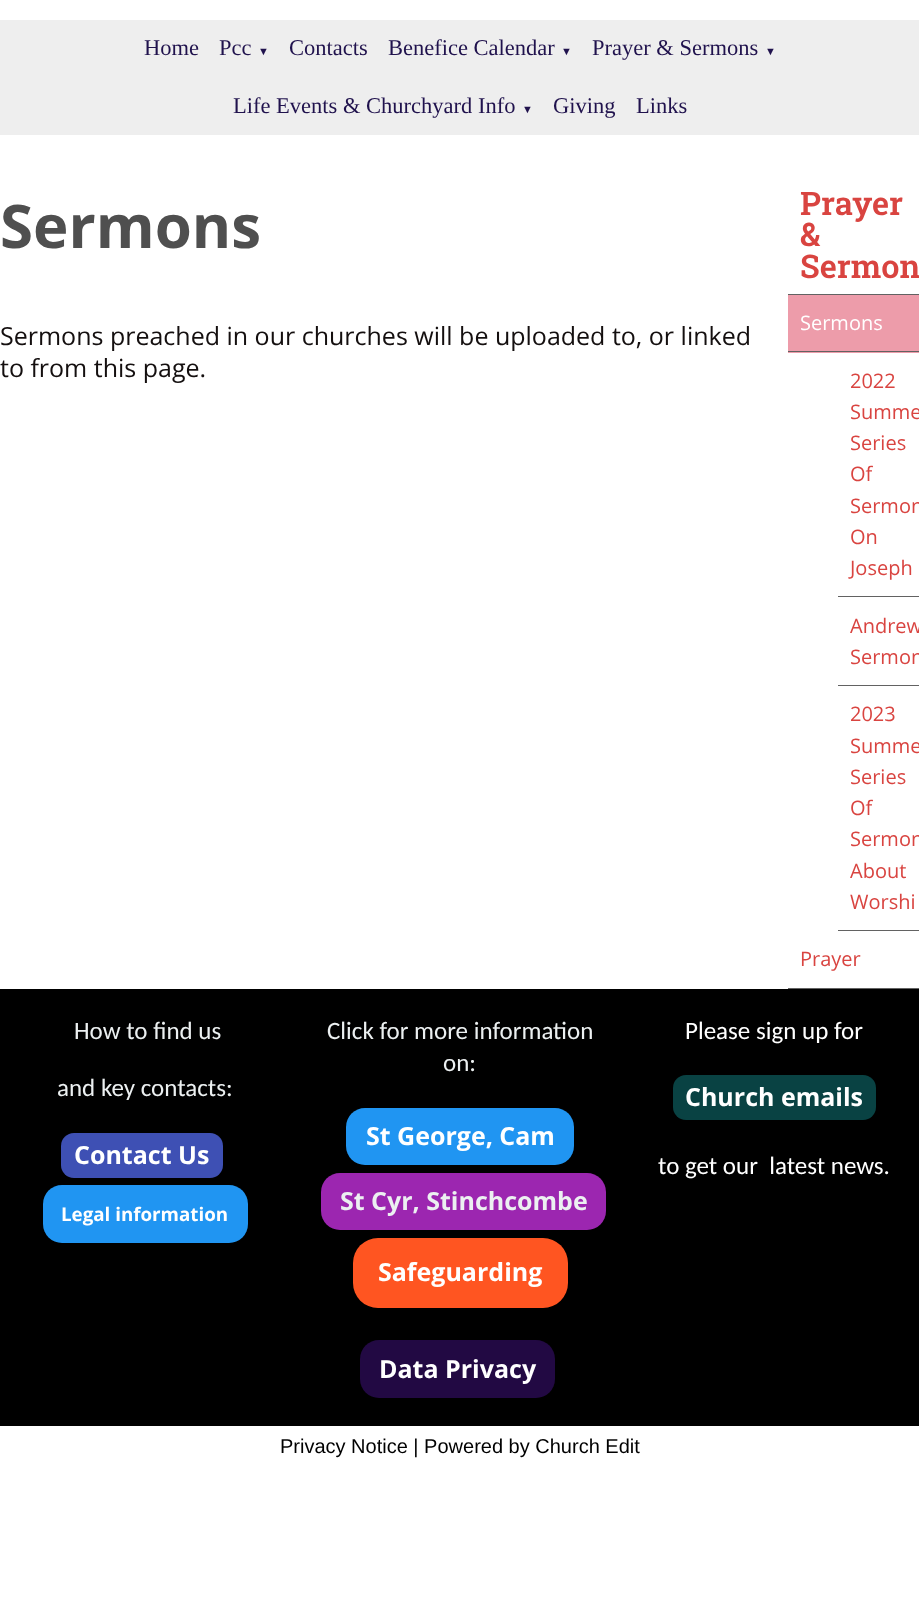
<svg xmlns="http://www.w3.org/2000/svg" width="919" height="1614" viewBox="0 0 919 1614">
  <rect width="100%" height="100%" fill="rgb(255,255,255)"/>
  <rect x="0" y="20" width="919" height="115" fill="rgb(238,238,238)"/>
  <g font-family="Liberation Serif" font-size="22.5" fill="rgb(32,18,77)">
    <text x="144" y="55">Home</text>
    <text x="219" y="55">Pcc</text>
  </g>
  <text x="258" y="55" font-family="Liberation Serif" font-size="11" fill="rgb(32,18,77)">▼</text>
  <g font-family="Liberation Serif" font-size="22.5" fill="rgb(32,18,77)">
    <text x="289" y="55">Contacts</text>
    <text x="388" y="55">Benefice Calendar</text>
  </g>
  <text x="561" y="55" font-family="Liberation Serif" font-size="11" fill="rgb(32,18,77)">▼</text>
  <text x="592" y="55" font-family="Liberation Serif" font-size="22.5" fill="rgb(32,18,77)">Prayer &amp; Sermons</text>
  <text x="765" y="55" font-family="Liberation Serif" font-size="11" fill="rgb(32,18,77)">▼</text>
  <text x="233" y="113" font-family="Liberation Serif" font-size="22.5" fill="rgb(32,18,77)">Life Events &amp; Churchyard Info</text>
  <text x="522" y="113" font-family="Liberation Serif" font-size="11" fill="rgb(32,18,77)">▼</text>
  <g font-family="Liberation Serif" font-size="22.5" fill="rgb(32,18,77)">
    <text x="553" y="113">Giving</text>
    <text x="636" y="113">Links</text>
  </g>
  <text x="0" y="248" font-family="Open Sans" font-size="60" font-weight="bold" fill="rgb(79,79,79)">Sermons</text>
  <g font-family="Open Sans" font-size="25" fill="rgb(20,15,15)">
    <text>
      <tspan x="0" y="345">Sermons preached in our churches will be uploaded to, or linked</tspan>
      <tspan x="0" y="377">to from this page.</tspan>
    </text>
  </g>
  <rect x="788" y="294" width="131" height="1" fill="rgb(98,98,98)"/>
  <g font-family="Roboto Slab" font-size="32.5" font-weight="600" fill="rgb(217,68,64)">
    <text>
      <tspan x="800" y="215">Prayer</tspan>
      <tspan x="800" y="246">&amp;</tspan>
      <tspan x="800" y="278">Sermon</tspan>
    </text>
  </g>
  <rect x="788" y="295" width="131" height="58" fill="rgb(237,156,170)"/>
  <rect x="788" y="351" width="131" height="1" fill="rgb(98,98,98)"/>
  <text x="800" y="330" font-family="Open Sans" font-size="20" fill="rgb(255,255,255)">Sermons</text>
  <rect x="838" y="596" width="81" height="1" fill="rgb(98,98,98)"/>
  <g font-family="Open Sans" font-size="20" fill="rgb(217,68,64)">
    <text>
      <tspan x="850" y="388">2022</tspan>
      <tspan x="850" y="419">Summe</tspan>
      <tspan x="850" y="450">Series</tspan>
      <tspan x="850" y="481">Of</tspan>
      <tspan x="850" y="513">Sermon</tspan>
      <tspan x="850" y="544">On</tspan>
      <tspan x="850" y="575">Joseph</tspan>
    </text>
  </g>
  <rect x="838" y="685" width="81" height="1" fill="rgb(98,98,98)"/>
  <g font-family="Open Sans" font-size="20" fill="rgb(217,68,64)">
    <text>
      <tspan x="850" y="633">Andrew</tspan>
      <tspan x="850" y="664">Sermon</tspan>
    </text>
  </g>
  <rect x="838" y="930" width="81" height="1" fill="rgb(98,98,98)"/>
  <g font-family="Open Sans" font-size="20" fill="rgb(217,68,64)">
    <text>
      <tspan x="850" y="721">2023</tspan>
      <tspan x="850" y="753">Summe</tspan>
      <tspan x="850" y="784">Series</tspan>
      <tspan x="850" y="815">Of</tspan>
      <tspan x="850" y="846">Sermon</tspan>
      <tspan x="850" y="878">About</tspan>
      <tspan x="850" y="909">Worshi</tspan>
    </text>
  </g>
  <rect x="788" y="988" width="131" height="1" fill="rgb(98,98,98)"/>
  <text x="800" y="966" font-family="Open Sans" font-size="20" fill="rgb(217,68,64)">Prayer</text>
  <rect x="0" y="989" width="919" height="437" fill="rgb(0,0,0)"/>
  <g font-family="Carlito" font-size="25" fill="rgb(236,240,241)">
    <text x="74" y="1039">How to find us</text>
    <text x="57" y="1096">and key contacts:</text>
  </g>
  <rect x="61" y="1133" width="162" height="45" rx="13" fill="rgb(62,80,180)"/>
  <text x="74" y="1164" font-family="Open Sans" font-size="25" font-weight="bold" fill="rgb(255,255,255)">Contact Us</text>
  <rect x="43" y="1185" width="205" height="58" rx="19" fill="rgb(32,149,242)"/>
  <text x="61" y="1221" font-family="Open Sans" font-size="18.75" font-weight="bold" fill="rgb(255,255,255)">Legal information</text>
  <g font-family="Carlito" font-size="25" fill="rgb(236,240,241)">
    <text x="327" y="1039">Click for more information</text>
    <text x="443" y="1071">on:</text>
  </g>
  <rect x="346" y="1108" width="228" height="57" rx="19" fill="rgb(32,149,242)"/>
  <text x="366" y="1145" font-family="Open Sans" font-size="25" font-weight="bold" fill="rgb(255,255,255)">St George, Cam</text>
  <rect x="321" y="1173" width="285" height="57" rx="19" fill="rgb(156,38,176)"/>
  <text x="340" y="1210" font-family="Open Sans" font-size="25" font-weight="bold" fill="rgb(236,240,241)">St Cyr, Stinchcombe</text>
  <rect x="353" y="1238" width="215" height="70" rx="25" fill="rgb(255,85,33)"/>
  <text x="378" y="1281" font-family="Open Sans" font-size="25" font-weight="bold" fill="rgb(255,255,255)">Safeguarding</text>
  <rect x="360" y="1340" width="195" height="58" rx="19" fill="rgb(34,9,67)"/>
  <text x="379" y="1378" font-family="Open Sans" font-size="25" font-weight="bold" fill="rgb(255,255,255)">Data Privacy</text>
  <text x="685" y="1039" font-family="Carlito" font-size="25" fill="rgb(255,255,255)">Please sign up for</text>
  <rect x="673" y="1075" width="203" height="45" rx="13" fill="rgb(9,66,67)"/>
  <text x="685" y="1106" font-family="Open Sans" font-size="25" font-weight="bold" fill="rgb(255,255,255)">Church emails</text>
  <text x="658" y="1174" font-family="Carlito" font-size="25" fill="rgb(255,255,255)" xml:space="preserve">to get our  latest news.</text>
  <text x="280" y="1453" font-family="Liberation Sans" font-size="20" fill="rgb(0,0,0)">Privacy Notice | Powered by Church Edit</text>
</svg>
